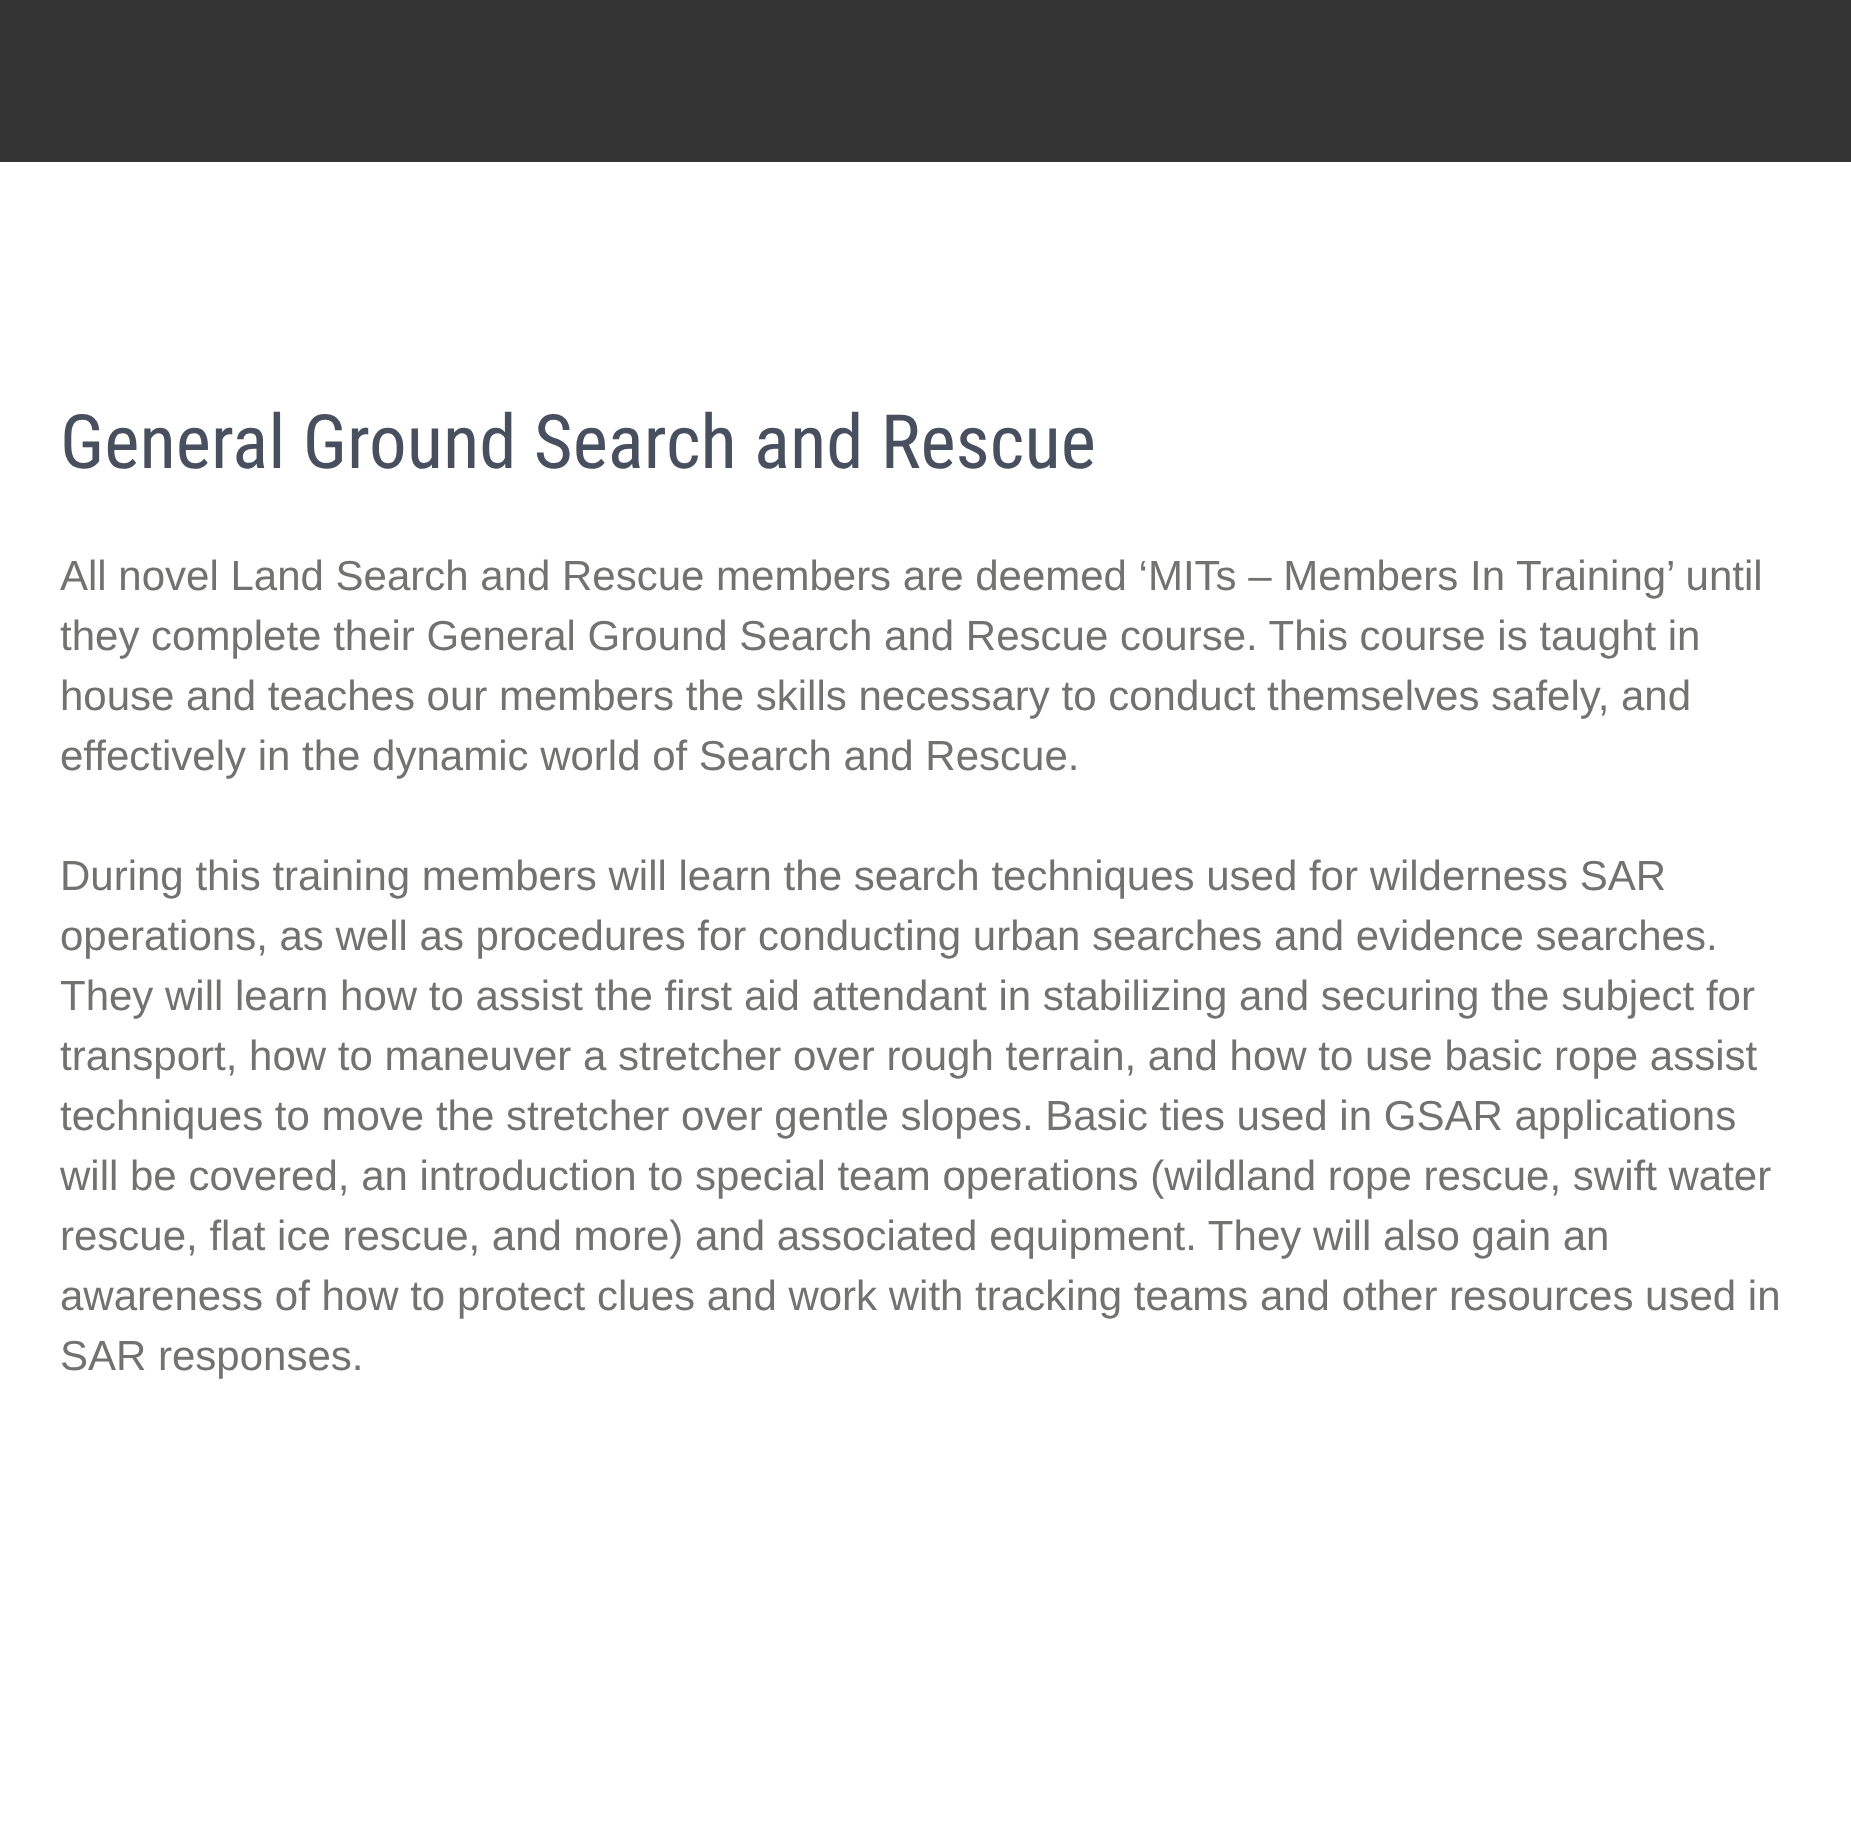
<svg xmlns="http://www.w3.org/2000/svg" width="1851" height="1845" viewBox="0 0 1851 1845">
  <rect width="100%" height="100%" fill="rgb(255,255,255)"/>
  <rect x="0" y="0" width="1851" height="162" fill="rgb(52,52,52)"/>
  <text x="60" y="468" font-family="Roboto Condensed" font-size="75" fill="rgb(72,79,94)">General Ground Search and Rescue</text>
  <g font-family="Liberation Sans" font-size="42" fill="rgb(114,115,112)">
    <text>
      <tspan x="60" y="590">All novel Land Search and Rescue members are deemed ‘MITs – Members In Training’ until</tspan>
      <tspan x="60" y="650">they complete their General Ground Search and Rescue course. This course is taught in</tspan>
      <tspan x="60" y="710">house and teaches our members the skills necessary to conduct themselves safely, and</tspan>
      <tspan x="60" y="770">effectively in the dynamic world of Search and Rescue.</tspan>
    </text>
    <text>
      <tspan x="60" y="890">During this training members will learn the search techniques used for wilderness SAR</tspan>
      <tspan x="60" y="950">operations, as well as procedures for conducting urban searches and evidence searches.</tspan>
      <tspan x="60" y="1010">They will learn how to assist the first aid attendant in stabilizing and securing the subject for</tspan>
      <tspan x="60" y="1070">transport, how to maneuver a stretcher over rough terrain, and how to use basic rope assist</tspan>
      <tspan x="60" y="1130">techniques to move the stretcher over gentle slopes. Basic ties used in GSAR applications</tspan>
      <tspan x="60" y="1190">will be covered, an introduction to special team operations (wildland rope rescue, swift water</tspan>
      <tspan x="60" y="1250">rescue, flat ice rescue, and more) and associated equipment. They will also gain an</tspan>
      <tspan x="60" y="1310">awareness of how to protect clues and work with tracking teams and other resources used in</tspan>
      <tspan x="60" y="1370">SAR responses.</tspan>
    </text>
  </g>
</svg>
